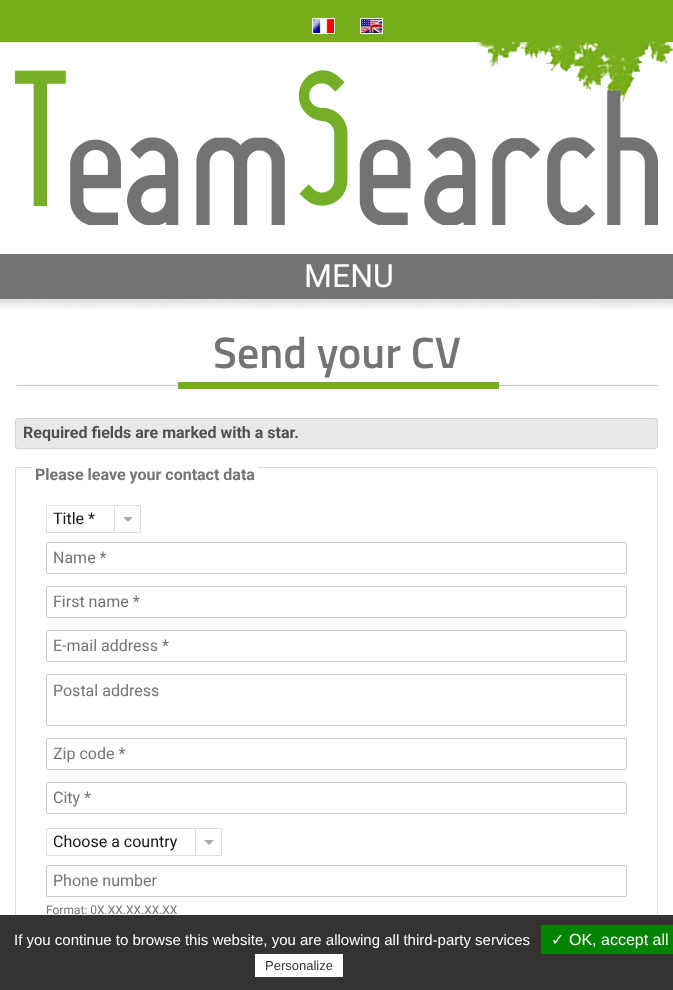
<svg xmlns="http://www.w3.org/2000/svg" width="673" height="990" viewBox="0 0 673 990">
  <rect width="100%" height="100%" fill="rgb(255,255,255)"/>
  <rect x="0" y="0" width="673" height="42" fill="rgb(119,173,27)"/>
  <image x="312" y="18" width="23" height="16" href="pic1.png"/>
  <image x="360" y="18" width="23" height="16" href="pic2.png"/>
  <image x="475" y="42" width="198" height="61" href="pic3.png"/>
  <image x="15" y="70" width="643" height="155" href="pic4.png"/>
  <rect x="0" y="254" width="673" height="45" fill="rgb(116,116,116)"/>
  <text x="304" y="287" font-family="Roboto" font-size="32" fill="rgb(255,255,255)">MENU</text>
  <image x="0" y="299" width="673" height="11" href="pic5.png"/>
  <text x="213" y="368" font-family="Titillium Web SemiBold" font-size="44" font-weight="600" fill="rgb(116,116,116)">Send your CV</text>
  <rect x="17" y="385" width="641" height="1" fill="rgb(194,194,194)"/>
  <rect x="178" y="382" width="321" height="7" fill="rgb(119,173,27)"/>
  <rect x="15" y="418" width="643" height="31" rx="3" fill="rgb(233,233,233)"/>
  <rect x="15.5" y="418.5" width="642" height="30" rx="2.5" fill="none" stroke="rgba(0,0,0,0.1)"/>
  <text x="23" y="438" font-family="Roboto" font-size="16" font-weight="bold" fill="rgb(80,80,80)">Required fields are marked with a star.</text>
  <rect x="15.5" y="467.5" width="642" height="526" rx="2.5" fill="none" stroke="rgb(221,221,221)"/>
  <rect x="32" y="467" width="226" height="1" fill="rgb(255,255,255)"/>
  <text x="35" y="480" font-family="Roboto" font-size="16" font-weight="bold" fill="rgb(116,116,116)">Please leave your contact data</text>
  <rect x="46.5" y="505.5" width="94" height="27" fill="none" stroke="rgb(221,221,221)"/>
  <text x="53" y="524" font-family="Roboto" font-size="16" fill="rgb(20,20,20)">Title *</text>
  <rect x="114.5" y="505.5" width="26" height="27" fill="none" stroke="rgb(221,221,221)"/>
  <path d="M123 517H133L128 522Z" fill="rgb(170,170,170)"/>
  <rect x="46.5" y="542.5" width="580" height="31" rx="1.5" fill="none" stroke="rgb(204,204,204)"/>
  <text x="53" y="563" font-family="Roboto" font-size="16" fill="rgb(116,116,116)">Name *</text>
  <rect x="46.5" y="586.5" width="580" height="31" rx="1.5" fill="none" stroke="rgb(204,204,204)"/>
  <text x="53" y="607" font-family="Roboto" font-size="16" fill="rgb(116,116,116)">First name *</text>
  <rect x="46.5" y="630.5" width="580" height="31" rx="1.5" fill="none" stroke="rgb(204,204,204)"/>
  <text x="53" y="651" font-family="Roboto" font-size="16" fill="rgb(116,116,116)">E-mail address *</text>
  <rect x="46.5" y="674.5" width="580" height="51" rx="1.5" fill="none" stroke="rgb(204,204,204)"/>
  <text x="53" y="696" font-family="Roboto" font-size="16" fill="rgb(116,116,116)">Postal address</text>
  <rect x="46.5" y="738.5" width="580" height="31" rx="1.5" fill="none" stroke="rgb(204,204,204)"/>
  <text x="53" y="759" font-family="Roboto" font-size="16" fill="rgb(116,116,116)">Zip code *</text>
  <rect x="46.5" y="782.5" width="580" height="31" rx="1.5" fill="none" stroke="rgb(204,204,204)"/>
  <text x="53" y="803" font-family="Roboto" font-size="16" fill="rgb(116,116,116)">City *</text>
  <rect x="46.5" y="828.5" width="175" height="27" fill="none" stroke="rgb(221,221,221)"/>
  <text x="53" y="847" font-family="Roboto" font-size="16" fill="rgb(20,20,20)">Choose a country</text>
  <rect x="195.5" y="828.5" width="26" height="27" fill="none" stroke="rgb(221,221,221)"/>
  <path d="M204 840H214L209 845Z" fill="rgb(170,170,170)"/>
  <rect x="46.5" y="865.5" width="580" height="31" rx="1.5" fill="none" stroke="rgb(204,204,204)"/>
  <text x="53" y="886" font-family="Roboto" font-size="16" fill="rgb(116,116,116)">Phone number</text>
  <text x="46" y="914" font-family="Roboto" font-size="12" fill="rgb(116,116,116)">Format: 0X.XX.XX.XX.XX</text>
  <rect x="0" y="915" width="673" height="75" fill="rgb(51,51,51)"/>
  <text x="14" y="945" font-family="Liberation Sans" font-size="15" fill="rgb(255,255,255)">If you continue to browse this website, you are allowing all third-party services</text>
  <rect x="541" y="925" width="132" height="29" fill="rgb(0,131,0)"/>
  <text x="551" y="945" font-family="DejaVu Sans" font-size="16" fill="rgb(255,255,255)">✓</text>
  <text x="569" y="945" font-family="Liberation Sans" font-size="16" fill="rgb(255,255,255)">OK, accept all</text>
  <rect x="255" y="954" width="88" height="23" fill="rgb(255,255,255)"/>
  <text x="265" y="970" font-family="Liberation Sans" font-size="13" fill="rgb(51,51,51)">Personalize</text>
</svg>
